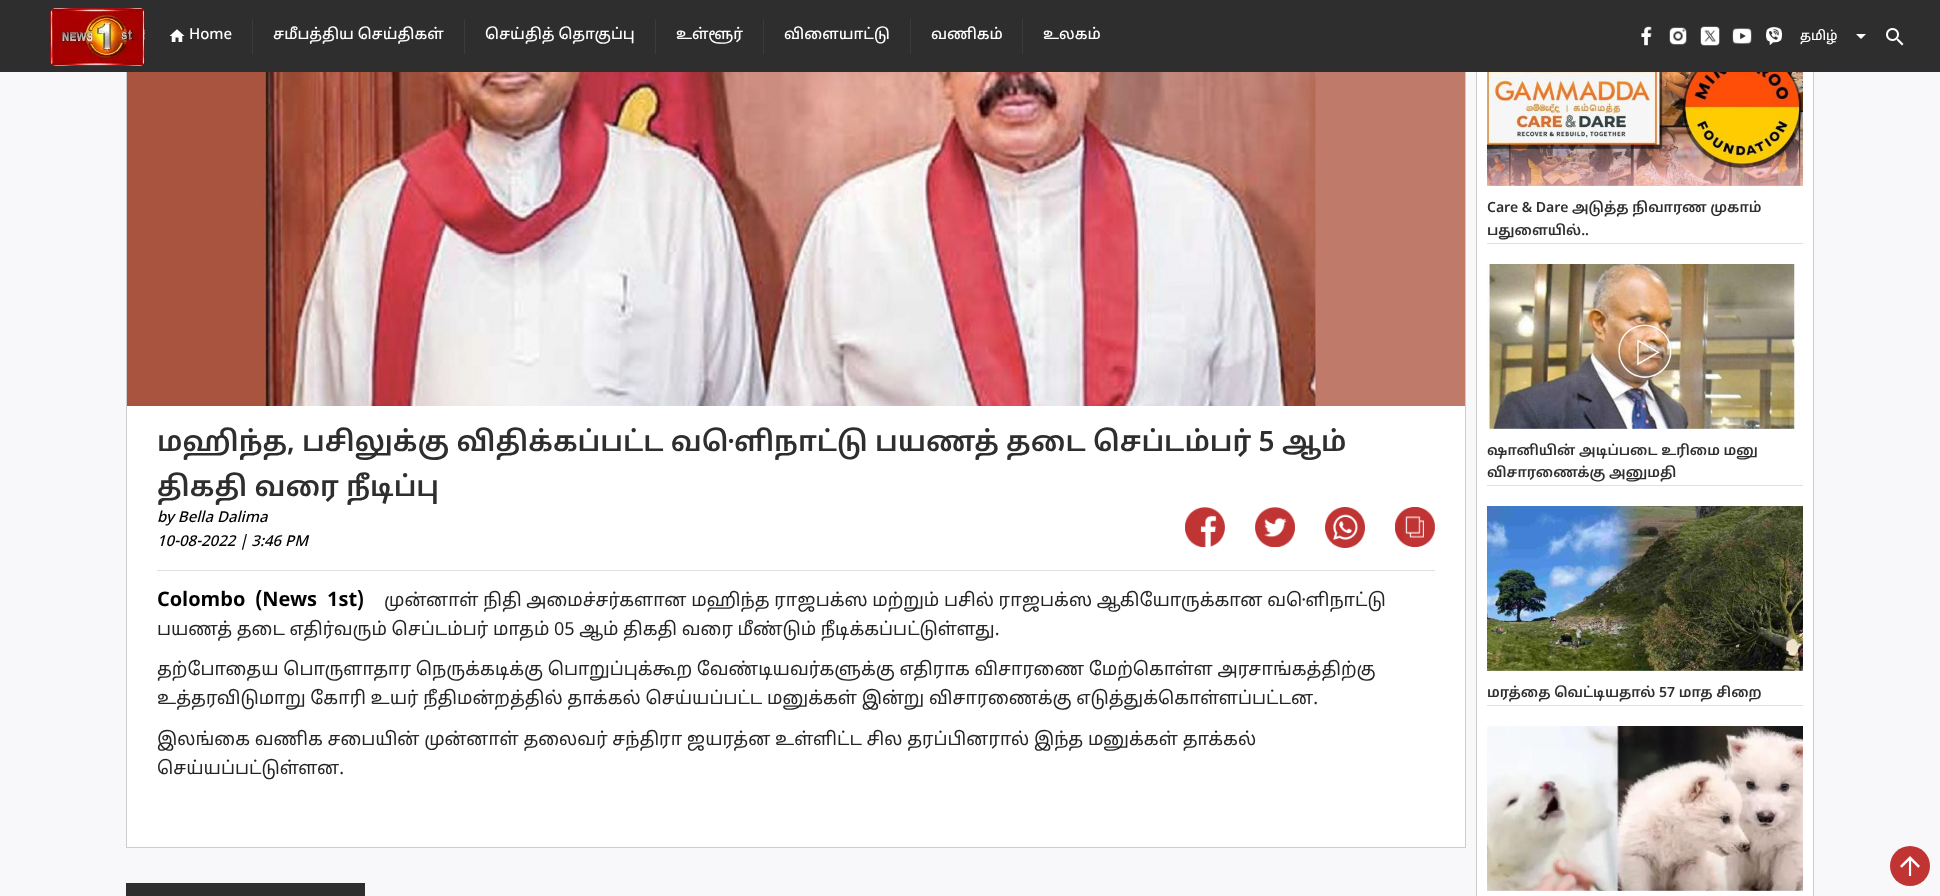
<svg xmlns="http://www.w3.org/2000/svg" width="1940" height="896" viewBox="0 0 1940 896">
  <defs>
    <clipPath id="clip1"><rect x="157" y="422" width="1278" height="85"/></clipPath>
  </defs>
  <rect width="100%" height="100%" fill="rgb(248,248,250)"/>
  <rect x="127" y="406" width="1338" height="441" fill="rgb(255,255,255)"/>
  <rect x="126.5" y="-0.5" width="1339" height="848" fill="none" stroke="rgb(204,204,204)"/>
  <rect x="1477" y="72" width="336" height="824" fill="rgb(255,255,255)"/>
  <rect x="1476.5" y="11.5" width="337" height="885" fill="none" stroke="rgb(204,204,204)"/>
  <rect x="0" y="0" width="1940" height="72" fill="rgb(46,46,46)"/>
  <image x="50" y="8" width="95" height="58" href="pic1.png"/>
  <image x="169" y="29" width="16" height="13" href="pic2.png"/>
  <text x="189" y="39" font-family="Noto Sans Tamil" font-size="15" font-weight="500" fill="rgb(255,255,255)">Home</text>
  <rect x="252" y="19" width="1" height="35" fill="rgb(59,59,59)"/>
  <text x="273" y="39" font-family="Noto Sans Tamil" font-size="15" font-weight="500" fill="rgb(255,255,255)">சமீபத்திய செய்திகள்</text>
  <rect x="464" y="19" width="1" height="35" fill="rgb(59,59,59)"/>
  <text x="485" y="39" font-family="Noto Sans Tamil" font-size="15" font-weight="500" fill="rgb(255,255,255)">செய்தித் தொகுப்பு</text>
  <rect x="655" y="19" width="1" height="35" fill="rgb(59,59,59)"/>
  <text x="676" y="39" font-family="Noto Sans Tamil" font-size="15" font-weight="500" fill="rgb(255,255,255)">உள்ளூர்</text>
  <rect x="763" y="19" width="1" height="35" fill="rgb(59,59,59)"/>
  <text x="784" y="39" font-family="Noto Sans Tamil" font-size="15" font-weight="500" fill="rgb(255,255,255)">விளையாட்டு</text>
  <rect x="910" y="19" width="1" height="35" fill="rgb(59,59,59)"/>
  <text x="931" y="39" font-family="Noto Sans Tamil" font-size="15" font-weight="500" fill="rgb(255,255,255)">வணிகம்</text>
  <rect x="1022" y="19" width="1" height="35" fill="rgb(59,59,59)"/>
  <text x="1043" y="39" font-family="Noto Sans Tamil" font-size="15" font-weight="500" fill="rgb(255,255,255)">உலகம்</text>
  <image x="1641" y="26" width="11" height="20" href="pic3.png"/>
  <image x="1669" y="27" width="18" height="18" href="pic4.png"/>
  <image x="1700" y="26" width="20" height="20" href="pic5.png"/>
  <image x="1732" y="28" width="20" height="16" href="pic6.png"/>
  <image x="1766" y="27" width="16" height="18" href="pic7.png"/>
  <text x="1800" y="40" font-family="Noto Sans Tamil" font-size="13" font-weight="500" fill="rgb(255,255,255)">தமிழ்</text>
  <path d="M1856 34H1866L1861 39Z" fill="rgb(255,255,255)"/>
  <image x="1886" y="28" width="18" height="18" href="pic8.png"/>
  <image x="127" y="72" width="1338" height="334" href="pic9.png"/>
  <text x="157" y="451" font-family="Noto Sans Tamil" font-size="28" font-weight="600" fill="rgb(46,46,46)">மஹிந்த, பசிலுக்கு விதிக்கப்பட்ட வௌிநாட்டு பயணத் தடை செப்டம்பர் 5 ஆம்</text>
  <g clip-path="url(#clip1)">
    <text x="157" y="496" font-family="Noto Sans Tamil" font-size="28" font-weight="600" fill="rgb(46,46,46)">திகதி வரை நீடிப்பு</text>
  </g>
  <g font-family="Noto Sans Tamil" font-size="15" font-weight="500" font-style="italic" fill="rgb(0,0,0)">
    <text>
      <tspan x="157" y="522">by Bella Dalima</tspan>
      <tspan x="157" y="546">10-08-2022 | 3:46 PM</tspan>
    </text>
  </g>
  <image x="1185" y="507" width="40" height="40" href="pic10.png"/>
  <image x="1255" y="507" width="40" height="40" href="pic11.png"/>
  <image x="1325" y="507" width="40" height="41" href="pic12.png"/>
  <image x="1395" y="507" width="40" height="40" href="pic13.png"/>
  <rect x="157" y="570" width="1278" height="1" fill="rgb(224,224,224)"/>
  <text x="157" y="606" font-family="Noto Sans Sinhala" font-size="20" font-weight="bold" fill="rgb(0,0,0)">Colombo (News 1st)</text>
  <g font-family="Noto Sans Tamil" font-size="18" fill="rgb(36,36,36)">
    <text x="384" y="606">முன்னாள் நிதி அமைச்சர்களான மஹிந்த ராஜபக்ஸ மற்றும் பசில் ராஜபக்ஸ ஆகியோருக்கான வௌிநாட்டு</text>
    <text x="157" y="635">பயணத் தடை எதிர்வரும் செப்டம்பர் மாதம் 05 ஆம் திகதி வரை மீண்டும் நீடிக்கப்பட்டுள்ளது.</text>
    <text>
      <tspan x="157" y="675">தற்போதைய பொருளாதார நெருக்கடிக்கு பொறுப்புக்கூற வேண்டியவர்களுக்கு எதிராக விசாரணை மேற்கொள்ள அரசாங்கத்திற்கு</tspan>
      <tspan x="157" y="704">உத்தரவிடுமாறு கோரி உயர் நீதிமன்றத்தில் தாக்கல் செய்யப்பட்ட மனுக்கள் இன்று விசாரணைக்கு எடுத்துக்கொள்ளப்பட்டன.</tspan>
    </text>
    <text>
      <tspan x="157" y="745">இலங்கை வணிக சபையின் முன்னாள் தலைவர் சந்திரா ஜயரத்ன உள்ளிட்ட சில தரப்பினரால் இந்த மனுக்கள் தாக்கல்</tspan>
      <tspan x="157" y="774">செய்யப்பட்டுள்ளன.</tspan>
    </text>
  </g>
  <rect x="126" y="883" width="239" height="13" fill="rgb(46,46,46)"/>
  <image x="1487" y="72" width="316" height="114" href="pic14.png"/>
  <g font-family="Noto Sans Tamil" font-size="14" font-weight="600" fill="rgb(46,46,46)">
    <text>
      <tspan x="1487" y="212">Care &amp; Dare அடுத்த நிவாரண முகாம்</tspan>
      <tspan x="1487" y="235">பதுளையில்..</tspan>
    </text>
  </g>
  <rect x="1487" y="243" width="316" height="1" fill="rgb(224,224,224)"/>
  <image x="1487" y="264" width="313" height="165" href="pic15.png"/>
  <image x="1617" y="324" width="55" height="54" href="pic16.png"/>
  <g font-family="Noto Sans Tamil" font-size="14" font-weight="600" fill="rgb(46,46,46)">
    <text>
      <tspan x="1487" y="455">ஷானியின் அடிப்படை உரிமை மனு</tspan>
      <tspan x="1487" y="477">விசாரணைக்கு அனுமதி</tspan>
    </text>
  </g>
  <rect x="1487" y="485" width="316" height="1" fill="rgb(224,224,224)"/>
  <image x="1487" y="506" width="316" height="165" href="pic17.png"/>
  <text x="1487" y="697" font-family="Noto Sans Tamil" font-size="14" font-weight="600" fill="rgb(46,46,46)">மரத்தை வெட்டியதால் 57 மாத சிறை</text>
  <rect x="1487" y="705" width="316" height="1" fill="rgb(224,224,224)"/>
  <image x="1487" y="726" width="316" height="165" href="pic18.png"/>
  <circle cx="1910" cy="866" r="20" fill="rgb(192,52,52)"/>
  <image x="1900" y="856" width="20" height="20" href="pic19.png"/>
</svg>
